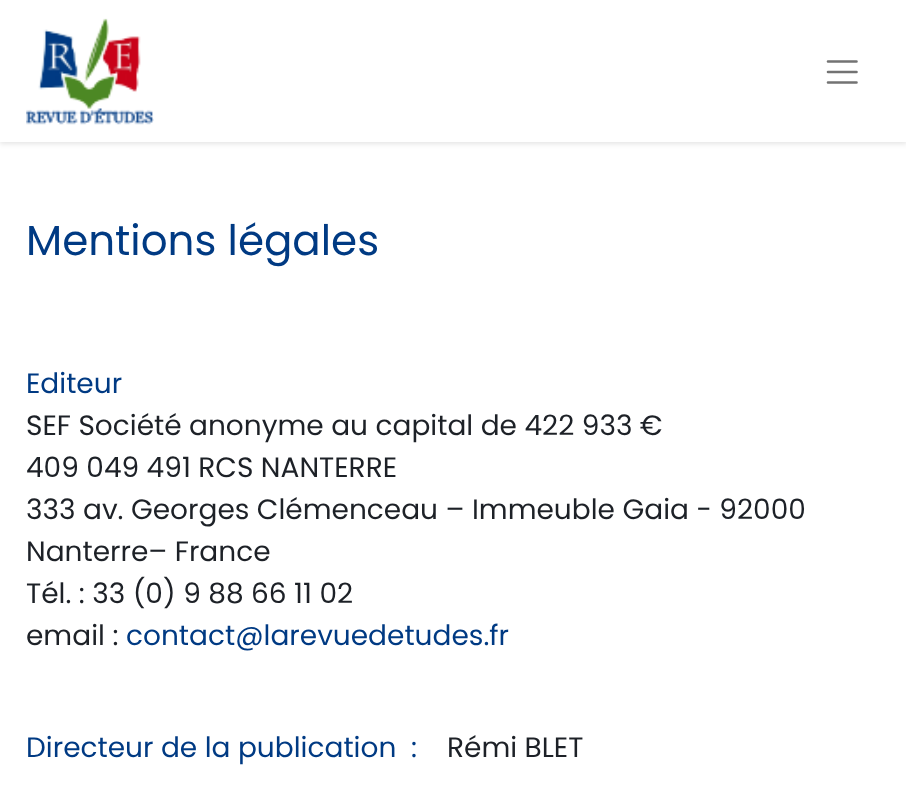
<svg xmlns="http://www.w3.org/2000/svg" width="906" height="805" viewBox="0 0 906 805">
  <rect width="100%" height="100%" fill="rgb(255,255,255)"/>
  <rect x="0" y="2" width="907" height="142" fill="rgba(0,0,0,0.1)" filter="blur(2.5px)"/>
  <rect x="0" y="0" width="906" height="142" fill="rgb(255,255,255)"/>
  <image x="26" y="18" width="128" height="107" href="pic1.png"/>
  <path d="M828 61.5H856.5M828 72H856.5M828 82.5H856.5" fill="none" stroke="rgb(115,115,115)" stroke-width="2.6" stroke-linecap="round"/>
  <text x="26" y="255" font-family="Poppins" font-size="42" fill="rgb(0,58,131)">Mentions légales</text>
  <text x="26" y="393" font-family="Poppins" font-size="28" fill="rgb(0,58,131)">Editeur</text>
  <g font-family="Poppins" font-size="28" fill="rgb(29,33,39)">
    <text>
      <tspan x="26" y="435">SEF Société anonyme au capital de 422 933 €</tspan>
      <tspan x="26" y="477">409 049 491 RCS NANTERRE</tspan>
      <tspan x="26" y="519">333 av. Georges Clémenceau – Immeuble Gaia - 92000</tspan>
      <tspan x="26" y="561">Nanterre– France</tspan>
      <tspan x="26" y="603">Tél. : 33 (0) 9 88 66 11 02</tspan>
      <tspan x="26" y="645">email :</tspan>
    </text>
  </g>
  <g font-family="Poppins" font-size="28" fill="rgb(0,58,131)">
    <text x="126" y="645">contact@larevuedetudes.fr</text>
    <text x="26" y="757">Directeur de la publication</text>
    <text x="411" y="757">:</text>
  </g>
  <text x="447" y="757" font-family="Poppins" font-size="28" fill="rgb(29,33,39)">Rémi BLET</text>
</svg>
